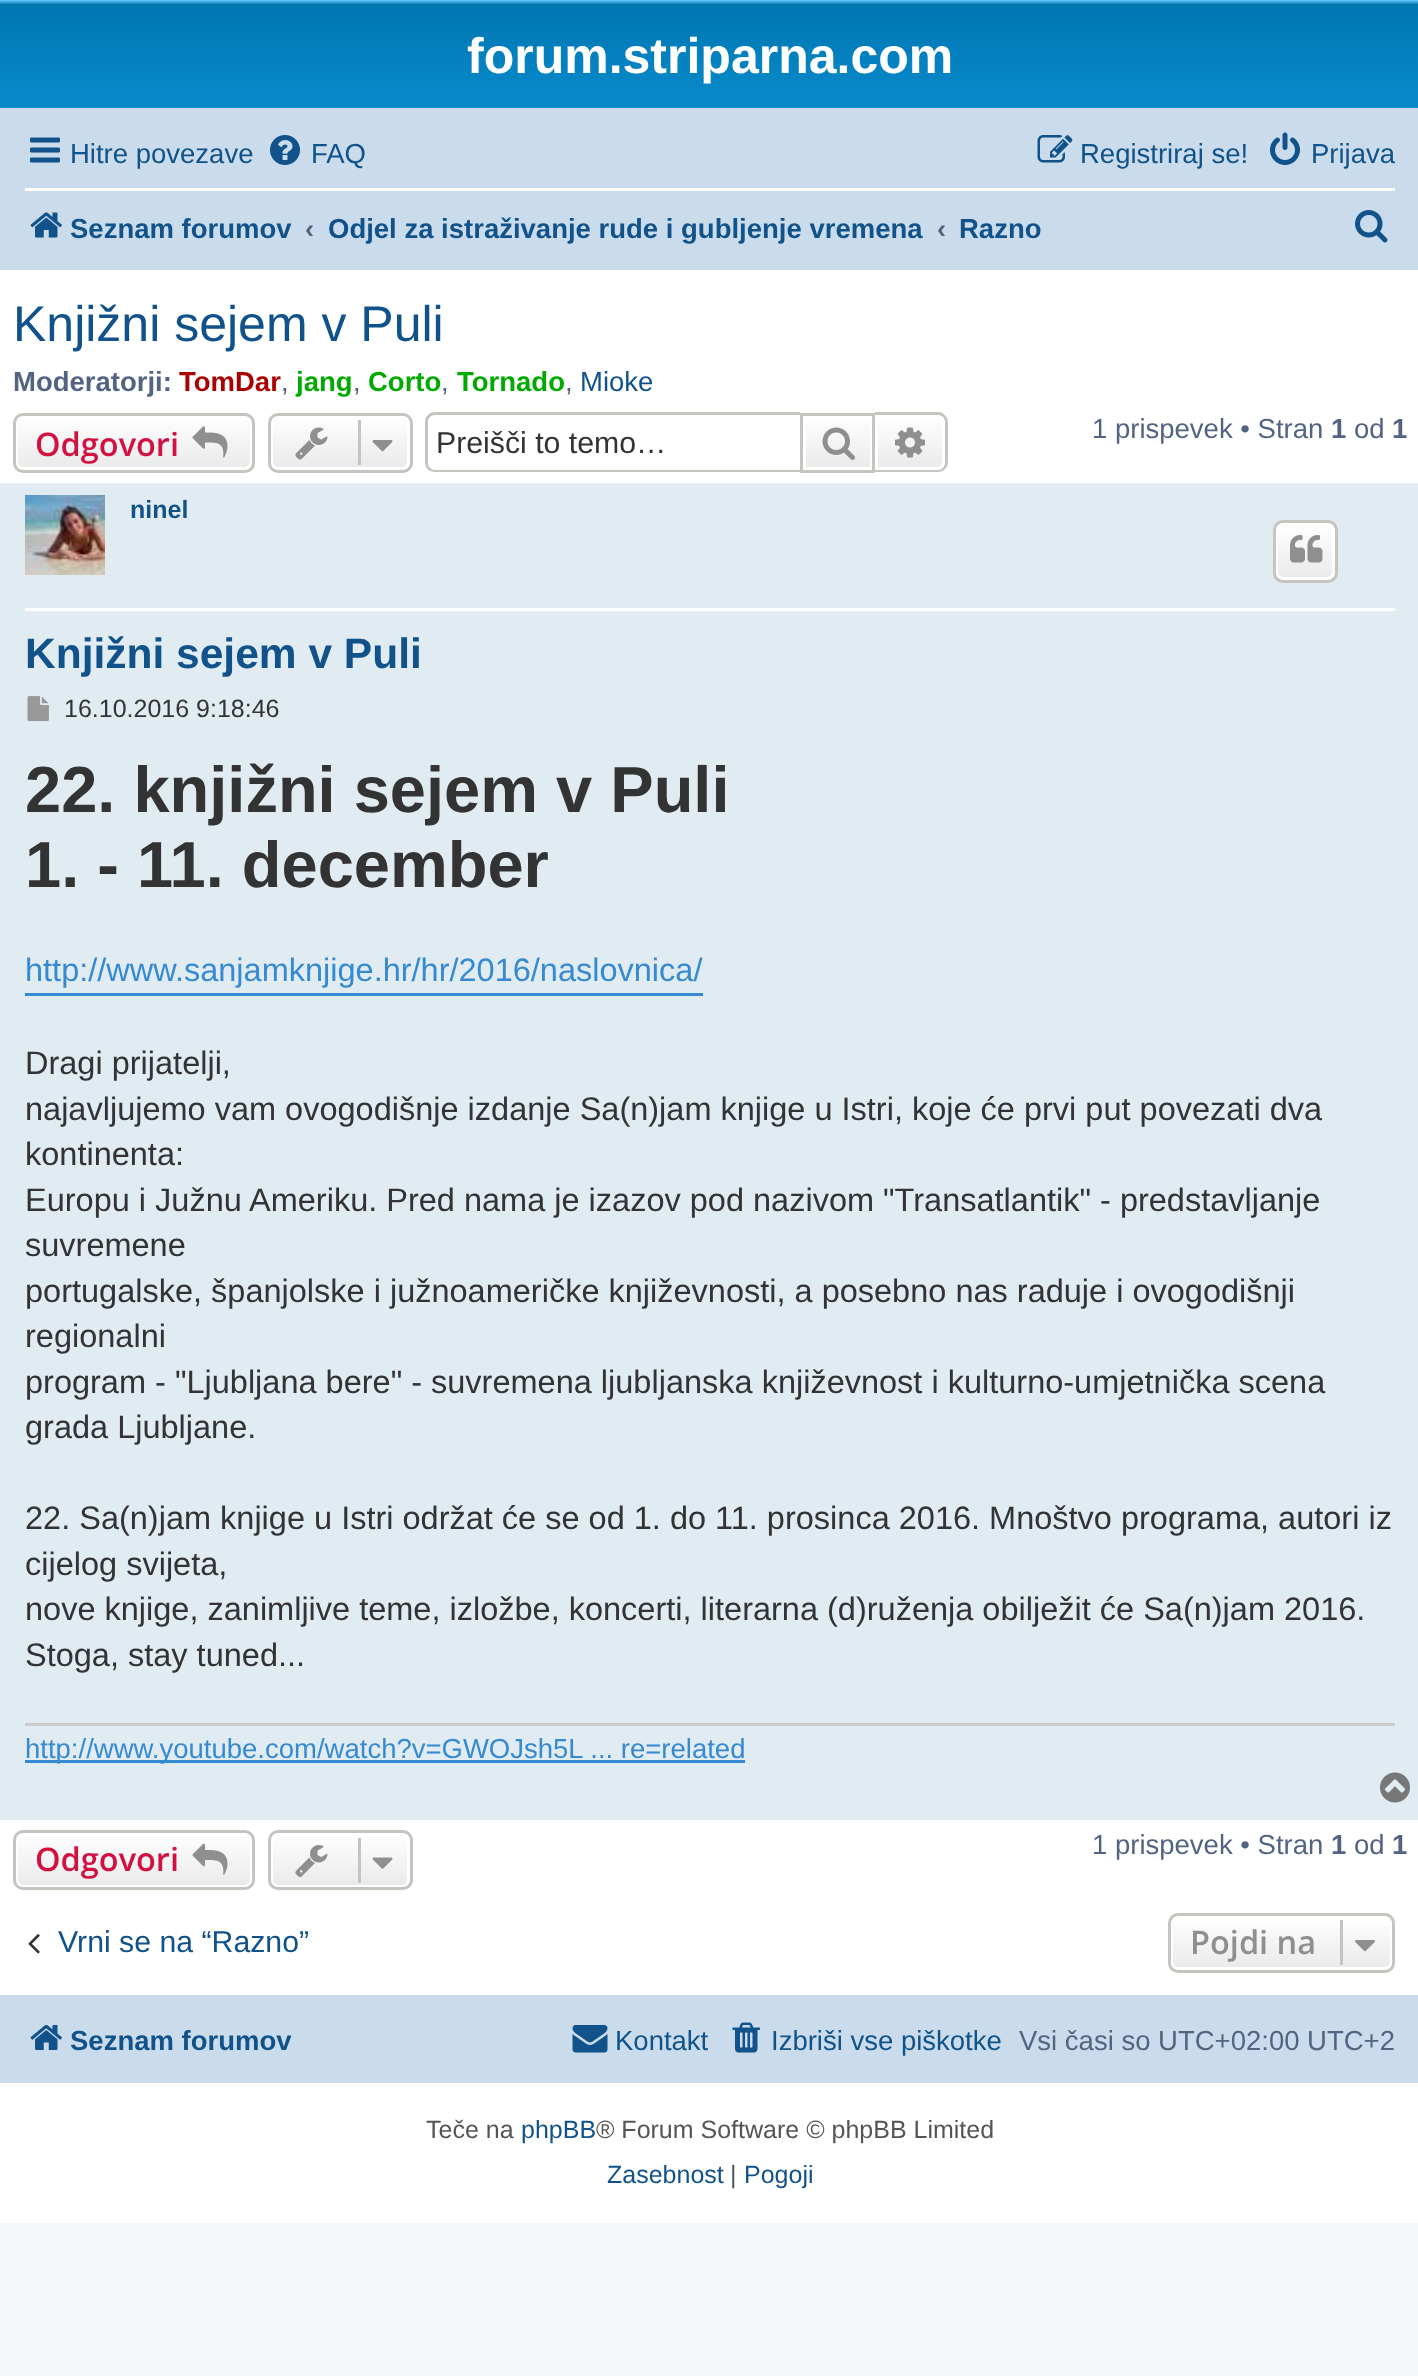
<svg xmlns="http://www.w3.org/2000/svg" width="1418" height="2376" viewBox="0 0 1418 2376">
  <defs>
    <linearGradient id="g1" gradientUnits="userSpaceOnUse" x1="710" y1="0" x2="710" y2="230"><stop offset="0" stop-color="rgb(106,206,255)"/><stop offset="0.02" stop-color="rgb(0,118,177)"/><stop offset="1" stop-color="rgb(18,163,235)"/></linearGradient>
    <clipPath id="clip1"><rect x="13" y="413" width="242" height="60" rx="10"/></clipPath>
    <linearGradient id="g2" gradientUnits="userSpaceOnUse" x1="134" y1="415" x2="134" y2="470"><stop offset="0" stop-color="rgb(255,255,255)"/><stop offset="1" stop-color="rgb(233,233,233)"/></linearGradient>
    <clipPath id="clip2"><rect x="268" y="413" width="145" height="60" rx="10"/></clipPath>
    <linearGradient id="g3" gradientUnits="userSpaceOnUse" x1="340" y1="415" x2="340" y2="470"><stop offset="0" stop-color="rgb(255,255,255)"/><stop offset="1" stop-color="rgb(233,233,233)"/></linearGradient>
    <linearGradient id="g4" gradientUnits="userSpaceOnUse" x1="838" y1="415" x2="838" y2="470"><stop offset="0" stop-color="rgb(255,255,255)"/><stop offset="1" stop-color="rgb(233,233,233)"/></linearGradient>
    <linearGradient id="g5" gradientUnits="userSpaceOnUse" x1="910" y1="415" x2="910" y2="470"><stop offset="0" stop-color="rgb(255,255,255)"/><stop offset="1" stop-color="rgb(233,233,233)"/></linearGradient>
    <clipPath id="clip3"><rect x="1273" y="520" width="65" height="63" rx="10"/></clipPath>
    <linearGradient id="g6" gradientUnits="userSpaceOnUse" x1="1305" y1="523" x2="1305" y2="580"><stop offset="0" stop-color="rgb(255,255,255)"/><stop offset="1" stop-color="rgb(233,233,233)"/></linearGradient>
    <clipPath id="clip4"><rect x="13" y="1830" width="242" height="60" rx="10"/></clipPath>
    <linearGradient id="g7" gradientUnits="userSpaceOnUse" x1="134" y1="1833" x2="134" y2="1888"><stop offset="0" stop-color="rgb(255,255,255)"/><stop offset="1" stop-color="rgb(233,233,233)"/></linearGradient>
    <clipPath id="clip5"><rect x="268" y="1830" width="145" height="60" rx="10"/></clipPath>
    <linearGradient id="g8" gradientUnits="userSpaceOnUse" x1="340" y1="1833" x2="340" y2="1888"><stop offset="0" stop-color="rgb(255,255,255)"/><stop offset="1" stop-color="rgb(233,233,233)"/></linearGradient>
    <clipPath id="clip6"><rect x="1168" y="1913" width="227" height="60" rx="10"/></clipPath>
    <linearGradient id="g9" gradientUnits="userSpaceOnUse" x1="1281" y1="1915" x2="1281" y2="1970"><stop offset="0" stop-color="rgb(255,255,255)"/><stop offset="1" stop-color="rgb(233,233,233)"/></linearGradient>
  </defs>
  <rect width="100%" height="100%" fill="rgb(245,247,250)"/>
  <rect x="0" y="270" width="1418" height="1953" fill="rgb(255,255,255)"/>
  <rect x="0" y="0" width="1418" height="108" fill="url(#g1)"/>
  <text x="467" y="73" font-family="Liberation Sans" font-size="50" font-weight="bold" fill="rgb(255,255,255)">forum.striparna.com</text>
  <rect x="0" y="108" width="1418" height="162" fill="rgb(202,220,235)"/>
  <image x="30" y="137" width="30" height="26" href="pic1.png"/>
  <text x="70" y="163" font-family="Liberation Sans" font-size="27.5" fill="rgb(16,82,137)">Hitre povezave</text>
  <image x="270" y="135" width="30" height="30" href="pic2.png"/>
  <text x="311" y="163" font-family="Liberation Sans" font-size="27.5" fill="rgb(16,82,137)">FAQ</text>
  <image x="1037" y="135" width="36" height="28" href="pic3.png"/>
  <text x="1080" y="163" font-family="Liberation Sans" font-size="27.5" fill="rgb(16,82,137)">Registriraj se!</text>
  <image x="1270" y="132" width="30" height="33" href="pic4.png"/>
  <text x="1311" y="163" font-family="Liberation Sans" font-size="27.5" fill="rgb(16,82,137)">Prijava</text>
  <rect x="25" y="188" width="1370" height="3" fill="rgb(255,255,255)"/>
  <image x="30" y="212" width="32" height="26" href="pic5.png"/>
  <text x="70" y="238" font-family="Liberation Sans" font-size="27.5" font-weight="bold" fill="rgb(16,82,137)">Seznam forumov</text>
  <text x="305" y="238" font-family="Liberation Sans" font-size="27.5" font-weight="bold" fill="rgb(83,100,130)">‹</text>
  <text x="328" y="238" font-family="Liberation Sans" font-size="27.5" font-weight="bold" fill="rgb(16,82,137)">Odjel za istraživanje rude i gubljenje vremena</text>
  <text x="937" y="238" font-family="Liberation Sans" font-size="27.5" font-weight="bold" fill="rgb(83,100,130)">‹</text>
  <text x="959" y="238" font-family="Liberation Sans" font-size="27.5" font-weight="bold" fill="rgb(16,82,137)">Razno</text>
  <image x="1355" y="210" width="33" height="33" href="pic6.png"/>
  <text x="13" y="341" font-family="Liberation Sans" font-size="50" fill="rgb(16,82,137)">Knjižni sejem v Puli</text>
  <text x="13" y="391" font-family="Liberation Sans" font-size="27.5" font-weight="bold" fill="rgb(83,100,130)">Moderatorji:</text>
  <text x="179" y="391" font-family="Liberation Sans" font-size="27.5" font-weight="bold" fill="rgb(170,0,0)">TomDar</text>
  <text x="281" y="391" font-family="Liberation Sans" font-size="27.5" fill="rgb(83,100,130)">,</text>
  <text x="296" y="391" font-family="Liberation Sans" font-size="27.5" font-weight="bold" fill="rgb(0,170,0)">jang</text>
  <text x="353" y="391" font-family="Liberation Sans" font-size="27.5" fill="rgb(83,100,130)">,</text>
  <text x="368" y="391" font-family="Liberation Sans" font-size="27.5" font-weight="bold" fill="rgb(0,170,0)">Corto</text>
  <text x="441" y="391" font-family="Liberation Sans" font-size="27.5" fill="rgb(83,100,130)">,</text>
  <text x="457" y="391" font-family="Liberation Sans" font-size="27.5" font-weight="bold" fill="rgb(0,170,0)">Tornado</text>
  <text x="565" y="391" font-family="Liberation Sans" font-size="27.5" fill="rgb(83,100,130)">,</text>
  <text x="580" y="391" font-family="Liberation Sans" font-size="27.5" fill="rgb(16,82,137)">Mioke</text>
  <g clip-path="url(#clip1)">
    <rect x="13" y="415" width="242" height="55" fill="url(#g2)"/>
  </g>
  <rect x="16.5" y="416.5" width="235" height="52" rx="6.5" fill="none" stroke="rgb(255,255,255)" stroke-width="3"/>
  <rect x="14.5" y="414.5" width="239" height="57" rx="8.5" fill="none" stroke="rgb(199,195,191)" stroke-width="3"/>
  <text x="35" y="456" font-family="Open Sans" font-size="32.5" font-weight="600" fill="rgb(211,17,65)">Odgovori</text>
  <image x="192" y="426" width="36" height="32" href="pic7.png"/>
  <g clip-path="url(#clip2)">
    <rect x="268" y="415" width="145" height="55" fill="url(#g3)"/>
  </g>
  <rect x="271.5" y="416.5" width="137" height="52" rx="6.5" fill="none" stroke="rgb(255,255,255)" stroke-width="3"/>
  <rect x="269.5" y="414.5" width="142" height="57" rx="8.5" fill="none" stroke="rgb(199,195,191)" stroke-width="3"/>
  <image x="295" y="427" width="33" height="33" href="pic8.png"/>
  <rect x="358" y="420" width="3" height="45" fill="rgb(199,195,191)"/>
  <image x="372" y="440" width="21" height="12" href="pic9.png"/>
  <path d="M435 412H800V472H435C429 472 425 468 425 462V422C425 417 429 412 435 412ZM435 415H800V470H435C431 470 428 467 428 462V422C428 418 431 415 435 415Z" fill="rgb(199,195,191)" fill-rule="evenodd"/>
  <text x="436" y="453" font-family="Liberation Sans" font-size="30.25" fill="rgb(51,51,51)">Preišči to temo…</text>
  <rect x="806" y="421" width="64" height="46" fill="url(#g4)"/>
  <rect x="801.5" y="414.5" width="72" height="57" fill="none" stroke="rgb(199,195,191)" stroke-width="3"/>
  <image x="822" y="427" width="33" height="33" href="pic10.png"/>
  <path d="M876.5 416.5H937C940.5 416.5 943.5 419.5 943.5 423V462C943.5 465.5 940.5 468.5 937 468.5H876.5Z" fill="url(#g5)" stroke="rgb(255,255,255)" stroke-width="3"/>
  <path d="M875 412H938C943 412 948 417 948 422V462C948 468 943 472 938 472H875ZM875 415H938C942 415 945 418 945 422V462C945 467 942 470 938 470H875Z" fill="rgb(199,195,191)" fill-rule="evenodd"/>
  <image x="895" y="427" width="30" height="31" href="pic11.png"/>
  <text x="1092" y="438" font-family="Liberation Sans" font-size="27.5" fill="rgb(83,100,130)">1 prispevek • Stran</text>
  <text x="1331" y="438" font-family="Liberation Sans" font-size="27.5" font-weight="bold" fill="rgb(83,100,130)">1</text>
  <text x="1354" y="438" font-family="Liberation Sans" font-size="27.5" fill="rgb(83,100,130)">od</text>
  <text x="1392" y="438" font-family="Liberation Sans" font-size="27.5" font-weight="bold" fill="rgb(83,100,130)">1</text>
  <rect x="0" y="483" width="1418" height="1337" fill="rgb(225,235,242)"/>
  <rect x="25" y="608" width="1370" height="3" fill="rgb(255,255,255)"/>
  <image x="25" y="495" width="80" height="80" href="pic12.png"/>
  <text x="130" y="518" font-family="Liberation Sans" font-size="25" font-weight="bold" fill="rgb(16,82,137)">ninel</text>
  <g clip-path="url(#clip3)">
    <rect x="1273" y="523" width="65" height="57" fill="url(#g6)"/>
  </g>
  <rect x="1276.5" y="524.5" width="57" height="54" rx="6.5" fill="none" stroke="rgb(255,255,255)" stroke-width="3"/>
  <rect x="1274.5" y="521.5" width="62" height="60" rx="8.5" fill="none" stroke="rgb(199,195,191)" stroke-width="3"/>
  <image x="1290" y="535" width="33" height="28" href="pic13.png"/>
  <text x="25" y="668" font-family="Liberation Sans" font-size="42.5" font-weight="bold" fill="rgb(16,82,137)">Knjižni sejem v Puli</text>
  <image x="27" y="696" width="22" height="26" href="pic14.png"/>
  <text x="64" y="717" font-family="Liberation Sans" font-size="25" fill="rgb(51,51,51)">16.10.2016 9:18:46</text>
  <g font-family="Liberation Sans" font-size="65" font-weight="bold" fill="rgb(51,51,51)">
    <text>
      <tspan x="25" y="812">22. knjižni sejem v Puli</tspan>
      <tspan x="25" y="887">1. - 11. december</tspan>
    </text>
  </g>
  <rect x="25" y="993" width="678" height="3" fill="rgb(54,138,210)"/>
  <text x="25" y="981" font-family="Liberation Sans" font-size="32.5" fill="rgb(54,138,210)">http://www.sanjamknjige.hr/hr/2016/naslovnica/</text>
  <g font-family="Liberation Sans" font-size="32.5" fill="rgb(51,51,51)">
    <text>
      <tspan x="25" y="1074">Dragi prijatelji,</tspan>
      <tspan x="25" y="1120">najavljujemo vam ovogodišnje izdanje Sa(n)jam knjige u Istri, koje će prvi put povezati dva</tspan>
      <tspan x="25" y="1165">kontinenta:</tspan>
      <tspan x="25" y="1211">Europu i Južnu Ameriku. Pred nama je izazov pod nazivom "Transatlantik" - predstavljanje</tspan>
      <tspan x="25" y="1256">suvremene</tspan>
      <tspan x="25" y="1302">portugalske, španjolske i južnoameričke književnosti, a posebno nas raduje i ovogodišnji</tspan>
      <tspan x="25" y="1347">regionalni</tspan>
      <tspan x="25" y="1393">program - "Ljubljana bere" - suvremena ljubljanska književnost i kulturno-umjetnička scena</tspan>
      <tspan x="25" y="1438">grada Ljubljane.</tspan>
    </text>
    <text>
      <tspan x="25" y="1529">22. Sa(n)jam knjige u Istri održat će se od 1. do 11. prosinca 2016. Mnoštvo programa, autori iz</tspan>
      <tspan x="25" y="1575">cijelog svijeta,</tspan>
      <tspan x="25" y="1620">nove knjige, zanimljive teme, izložbe, koncerti, literarna (d)ruženja obilježit će Sa(n)jam 2016.</tspan>
      <tspan x="25" y="1666">Stoga, stay tuned...</tspan>
    </text>
  </g>
  <rect x="25" y="1723" width="1370" height="3" fill="rgb(204,204,204)"/>
  <rect x="25" y="1760" width="720" height="3" fill="rgb(54,138,210)"/>
  <text x="25" y="1758" font-family="Liberation Sans" font-size="27.5" fill="rgb(54,138,210)">http://www.youtube.com/watch?v=GWOJsh5L ... re=related</text>
  <image x="1380" y="1772" width="30" height="31" href="pic15.png"/>
  <g clip-path="url(#clip4)">
    <rect x="13" y="1833" width="242" height="55" fill="url(#g7)"/>
  </g>
  <rect x="16.5" y="1834.5" width="235" height="52" rx="6.5" fill="none" stroke="rgb(255,255,255)" stroke-width="3"/>
  <rect x="14.5" y="1831.5" width="239" height="57" rx="8.5" fill="none" stroke="rgb(199,195,191)" stroke-width="3"/>
  <text x="35" y="1871" font-family="Open Sans" font-size="32.5" font-weight="600" fill="rgb(211,17,65)">Odgovori</text>
  <image x="192" y="1843" width="36" height="32" href="pic16.png"/>
  <g clip-path="url(#clip5)">
    <rect x="268" y="1833" width="145" height="55" fill="url(#g8)"/>
  </g>
  <rect x="271.5" y="1834.5" width="137" height="52" rx="6.5" fill="none" stroke="rgb(255,255,255)" stroke-width="3"/>
  <rect x="269.5" y="1831.5" width="142" height="57" rx="8.5" fill="none" stroke="rgb(199,195,191)" stroke-width="3"/>
  <image x="295" y="1845" width="33" height="32" href="pic17.png"/>
  <rect x="358" y="1838" width="3" height="45" fill="rgb(199,195,191)"/>
  <image x="372" y="1857" width="21" height="12" href="pic18.png"/>
  <text x="1092" y="1854" font-family="Liberation Sans" font-size="27.5" fill="rgb(83,100,130)">1 prispevek • Stran</text>
  <text x="1331" y="1854" font-family="Liberation Sans" font-size="27.5" font-weight="bold" fill="rgb(83,100,130)">1</text>
  <text x="1354" y="1854" font-family="Liberation Sans" font-size="27.5" fill="rgb(83,100,130)">od</text>
  <text x="1392" y="1854" font-family="Liberation Sans" font-size="27.5" font-weight="bold" fill="rgb(83,100,130)">1</text>
  <image x="28" y="1934" width="12" height="20" href="pic19.png"/>
  <text x="58" y="1952" font-family="Liberation Sans" font-size="30.25" fill="rgb(16,82,137)">Vrni se na “Razno”</text>
  <g clip-path="url(#clip6)">
    <rect x="1168" y="1915" width="227" height="55" fill="url(#g9)"/>
  </g>
  <rect x="1171.5" y="1916.5" width="220" height="52" rx="6.5" fill="none" stroke="rgb(255,255,255)" stroke-width="3"/>
  <rect x="1169.5" y="1914.5" width="224" height="57" rx="8.5" fill="none" stroke="rgb(199,195,191)" stroke-width="3"/>
  <text x="1190" y="1954" font-family="Open Sans" font-size="32.5" font-weight="600" fill="rgb(143,143,143)">Pojdi na</text>
  <rect x="1340" y="1920" width="3" height="45" fill="rgb(199,195,191)"/>
  <image x="1355" y="1940" width="20" height="12" href="pic20.png"/>
  <rect x="0" y="1995" width="1418" height="88" fill="rgb(202,220,235)"/>
  <image x="30" y="2024" width="32" height="26" href="pic21.png"/>
  <text x="70" y="2050" font-family="Liberation Sans" font-size="27.5" font-weight="bold" fill="rgb(16,82,137)">Seznam forumov</text>
  <image x="572" y="2025" width="36" height="28" href="pic22.png"/>
  <text x="615" y="2050" font-family="Liberation Sans" font-size="27.5" fill="rgb(16,82,137)">Kontakt</text>
  <image x="732" y="2022" width="28" height="31" href="pic23.png"/>
  <text x="771" y="2050" font-family="Liberation Sans" font-size="27.5" fill="rgb(16,82,137)">Izbriši vse piškotke</text>
  <text x="1019" y="2050" font-family="Liberation Sans" font-size="27.5" fill="rgb(83,100,130)">Vsi časi so UTC+02:00 UTC+2</text>
  <text x="426" y="2138" font-family="Liberation Sans" font-size="25" fill="rgb(85,85,85)">Teče na</text>
  <text x="521" y="2138" font-family="Liberation Sans" font-size="25" fill="rgb(16,82,137)">phpBB</text>
  <text x="596" y="2138" font-family="Liberation Sans" font-size="25" fill="rgb(85,85,85)">® Forum Software © phpBB Limited</text>
  <text x="607" y="2183" font-family="Liberation Sans" font-size="25" fill="rgb(16,82,137)">Zasebnost</text>
  <text x="730" y="2183" font-family="Liberation Sans" font-size="25" fill="rgb(85,85,85)">|</text>
  <text x="744" y="2183" font-family="Liberation Sans" font-size="25" fill="rgb(16,82,137)">Pogoji</text>
</svg>
